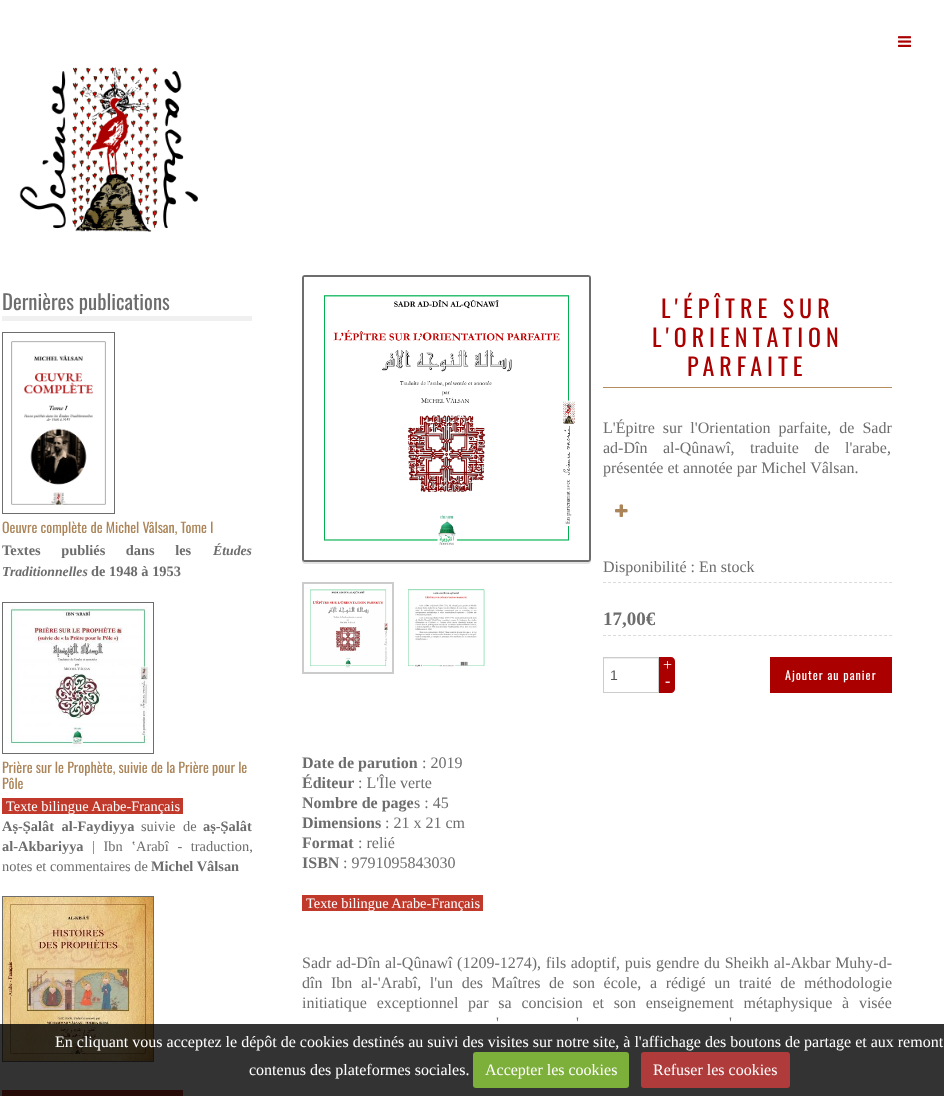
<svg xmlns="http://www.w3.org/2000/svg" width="944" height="1096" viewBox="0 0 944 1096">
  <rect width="100%" height="100%" fill="rgb(255,255,255)"/>
  <image x="898" y="36" width="14" height="11" href="pic1.png"/>
  <image x="19" y="67" width="179" height="165" href="pic2.png"/>
  <rect x="2" y="316" width="250" height="5" fill="rgb(240,240,240)"/>
  <text x="2" y="310" font-family="Oswald" font-size="20.75" fill="rgb(110,109,110)">Dernières publications</text>
  <rect x="2.5" y="332.5" width="112" height="181" fill="none" stroke="rgb(110,109,110)"/>
  <image x="11" y="341" width="95" height="164" href="pic3.png"/>
  <text x="2" y="533" font-family="Oswald" font-size="14" fill="rgb(171,133,89)">Oeuvre complète de Michel Vâlsan, Tome I</text>
  <text x="2" y="555" word-spacing="17" font-family="Liberation Serif" font-size="14.4" font-weight="bold" fill="rgb(110,109,110)">Textes publiés dans les</text>
  <g font-family="Liberation Serif" font-size="13.75" font-weight="bold" font-style="italic" fill="rgb(110,109,110)">
    <text x="213" y="555">Études</text>
    <text x="2" y="576">Traditionnelles</text>
  </g>
  <text x="91" y="576" font-family="Liberation Serif" font-size="14.4" font-weight="bold" fill="rgb(110,109,110)">de 1948 à 1953</text>
  <rect x="2.5" y="602.5" width="151" height="151" fill="none" stroke="rgb(110,109,110)"/>
  <image x="10" y="606" width="140" height="141" href="pic4.png"/>
  <g font-family="Oswald" font-size="14" fill="rgb(171,133,89)">
    <text>
      <tspan x="2" y="773">Prière sur le Prophète, suivie de la Prière pour le</tspan>
      <tspan x="2" y="789">Pôle</tspan>
    </text>
  </g>
  <rect x="2" y="798" width="181" height="16" fill="rgb(192,57,43)"/>
  <text x="6" y="811" font-family="Liberation Serif" font-size="14.4" fill="rgb(255,255,255)">Texte bilingue Arabe-Français</text>
  <g font-family="Liberation Serif" font-size="14.4" font-weight="bold" fill="rgb(110,109,110)">
    <text x="2" y="831">Aṣ</text>
    <text x="18" y="831" word-spacing="4">-Ṣalât al-Faydiyya</text>
  </g>
  <text x="141" y="831" word-spacing="4" font-family="Liberation Serif" font-size="14.4" fill="rgb(110,109,110)">suivie de</text>
  <g font-family="Liberation Serif" font-size="14.4" font-weight="bold" fill="rgb(110,109,110)">
    <text x="203" y="831">aṣ-Ṣalât</text>
    <text x="2" y="851">al-Akbariyya</text>
  </g>
  <g font-family="Liberation Serif" font-size="14.4" fill="rgb(110,109,110)">
    <text x="92" y="851" word-spacing="5">| Ibn ‛Arabî - traduction,</text>
    <text x="2" y="871">notes et commentaires de</text>
  </g>
  <text x="151" y="871" font-family="Liberation Serif" font-size="14.4" font-weight="bold" fill="rgb(110,109,110)">Michel Vâlsan</text>
  <rect x="2.5" y="896.5" width="151" height="165" fill="none" stroke="rgb(110,109,110)"/>
  <image x="3" y="897" width="150" height="164" href="pic5.png"/>
  <rect x="2" y="1090" width="181" height="6" fill="rgb(192,57,43)"/>
  <path d="M302 559C302 561 302 564 305 564H588C591 564 591 561 591 559C591 561 590 562 588 562H305C303 562 302 561 302 559Z" fill="rgb(227,227,227)"/>
  <rect x="303" y="276" width="287" height="285" rx="2" fill="none" stroke="rgb(110,109,110)" stroke-width="2"/>
  <image x="304" y="277" width="285" height="283" href="pic6.png"/>
  <rect x="303" y="583" width="90" height="90" fill="none" stroke="rgb(204,204,204)" stroke-width="2"/>
  <image x="310" y="589" width="78" height="79" href="pic7.png"/>
  <image x="408" y="589" width="77" height="78" href="pic8.png"/>
  <rect x="603" y="387" width="289" height="1" fill="rgb(180,141,94)"/>
  <g font-family="Oswald" font-size="24" letter-spacing="5" fill="rgb(170,0,0)">
    <text x="661" y="318">L'ÉPÎTRE SUR</text>
    <text x="652" y="347">L'ORIENTATION</text>
    <text x="687" y="376">PARFAITE</text>
  </g>
  <g font-family="Liberation Serif" font-size="16" fill="rgb(110,109,110)">
    <text>
      <tspan x="603" y="433" word-spacing="4">L'Épitre sur l'Orientation parfaite, de Sadr</tspan>
      <tspan x="603" y="453" word-spacing="11.5">ad-Dîn al-Qûnawî, traduite de l'arabe,</tspan>
      <tspan x="603" y="473">présentée et annotée par Michel Vâlsan.</tspan>
    </text>
  </g>
  <image x="615" y="504" width="13" height="13" href="pic9.png"/>
  <path d="M603 582.5H892" fill="none" stroke="rgb(219,219,219)" stroke-dasharray="3 2.02"/>
  <text x="603" y="572" font-family="Liberation Serif" font-size="16" fill="rgb(110,109,110)">Disponibilité : En stock</text>
  <path d="M603 635.5H892" fill="none" stroke="rgb(219,219,219)" stroke-dasharray="3 2.02"/>
  <text x="603" y="625" font-family="Liberation Serif" font-size="19" font-weight="bold" fill="rgb(110,109,110)">17,00€</text>
  <path d="M659 657H671C673 657 675 659 675 661V677H659Z" fill="rgb(170,0,0)"/>
  <text x="663" y="670" font-family="Liberation Serif" font-size="16" fill="rgb(255,255,255)">+</text>
  <rect x="604" y="658" width="54" height="1" fill="rgb(236,236,236)"/>
  <rect x="603.5" y="657.5" width="55" height="35" fill="none" stroke="rgb(204,204,204)"/>
  <text x="610" y="680" font-family="Liberation Sans" font-size="14" fill="rgb(85,85,85)">1</text>
  <path d="M659 673H675V689C675 691 673 693 671 693H659Z" fill="rgb(170,0,0)"/>
  <text x="665" y="686" font-family="Liberation Serif" font-size="16" fill="rgb(255,255,255)">-</text>
  <rect x="770" y="657" width="122" height="36" fill="rgb(170,0,0)"/>
  <text x="785" y="680" font-family="Oswald" font-size="12" letter-spacing="1" fill="rgb(255,255,255)">Ajouter au panier</text>
  <text x="302" y="768" font-family="Liberation Serif" font-size="16" font-weight="bold" fill="rgb(110,109,110)">Date de parution</text>
  <text x="422" y="768" font-family="Liberation Serif" font-size="16" fill="rgb(110,109,110)">: 2019</text>
  <text x="302" y="788" font-family="Liberation Serif" font-size="16" font-weight="bold" fill="rgb(110,109,110)">Éditeur</text>
  <text x="358" y="788" font-family="Liberation Serif" font-size="16" fill="rgb(110,109,110)">: L'Île verte</text>
  <text x="302" y="808" font-family="Liberation Serif" font-size="16" font-weight="bold" fill="rgb(110,109,110)">Nombre de page</text>
  <text x="414" y="808" font-family="Liberation Serif" font-size="16" fill="rgb(110,109,110)">s : 45</text>
  <text x="302" y="828" font-family="Liberation Serif" font-size="16" font-weight="bold" fill="rgb(110,109,110)">Dimensions</text>
  <text x="385" y="828" font-family="Liberation Serif" font-size="16" fill="rgb(110,109,110)">: 21 x 21 cm</text>
  <text x="302" y="848" font-family="Liberation Serif" font-size="16" font-weight="bold" fill="rgb(110,109,110)">Format</text>
  <text x="358" y="848" font-family="Liberation Serif" font-size="16" fill="rgb(110,109,110)">: relié</text>
  <text x="302" y="868" font-family="Liberation Serif" font-size="16" font-weight="bold" fill="rgb(110,109,110)">ISBN</text>
  <text x="343" y="868" font-family="Liberation Serif" font-size="16" fill="rgb(110,109,110)">: 9791095843030</text>
  <rect x="302" y="895" width="181" height="16" fill="rgb(192,57,43)"/>
  <text x="306" y="908" font-family="Liberation Serif" font-size="14.4" fill="rgb(255,255,255)">Texte bilingue Arabe-Français</text>
  <g font-family="Liberation Serif" font-size="16" fill="rgb(110,109,110)">
    <text>
      <tspan x="302" y="968" word-spacing="0.6">Sadr ad-Dîn al-Qûnawî (1209-1274), fils adoptif, puis gendre du Sheikh al-Akbar Muhy-d-</tspan>
      <tspan x="302" y="988" word-spacing="4.6">dîn Ibn al-'Arabî, l'un des Maîtres de son école, a rédigé un traité de méthodologie</tspan>
      <tspan x="302" y="1008" word-spacing="5.75">initiatique exceptionnel par sa concision et son enseignement métaphysique à visée</tspan>
    </text>
    <text x="496" y="1028" word-spacing="3">'</text>
    <text x="576" y="1028" word-spacing="3">'</text>
    <text x="729" y="1028" word-spacing="3">'</text>
  </g>
  <rect x="0" y="1024" width="944" height="72" fill="rgba(0,0,0,0.8)"/>
  <g font-family="Liberation Serif" font-size="16" fill="rgb(255,255,255)">
    <text x="55" y="1047">En cliquant vous acceptez le dépôt de cookies destinés au suivi des visites sur notre site, à l'affichage des boutons de partage et aux remont</text>
    <text x="249" y="1075">contenus des plateformes sociales.</text>
  </g>
  <rect x="473" y="1052" width="156" height="36" rx="3" fill="rgb(125,175,59)"/>
  <text x="485" y="1075" font-family="Liberation Serif" font-size="16" fill="rgb(255,255,255)">Accepter les cookies</text>
  <rect x="641" y="1052" width="149" height="36" rx="3" fill="rgb(175,59,59)"/>
  <text x="653" y="1075" font-family="Liberation Serif" font-size="16" fill="rgb(255,255,255)">Refuser les cookies</text>
</svg>
